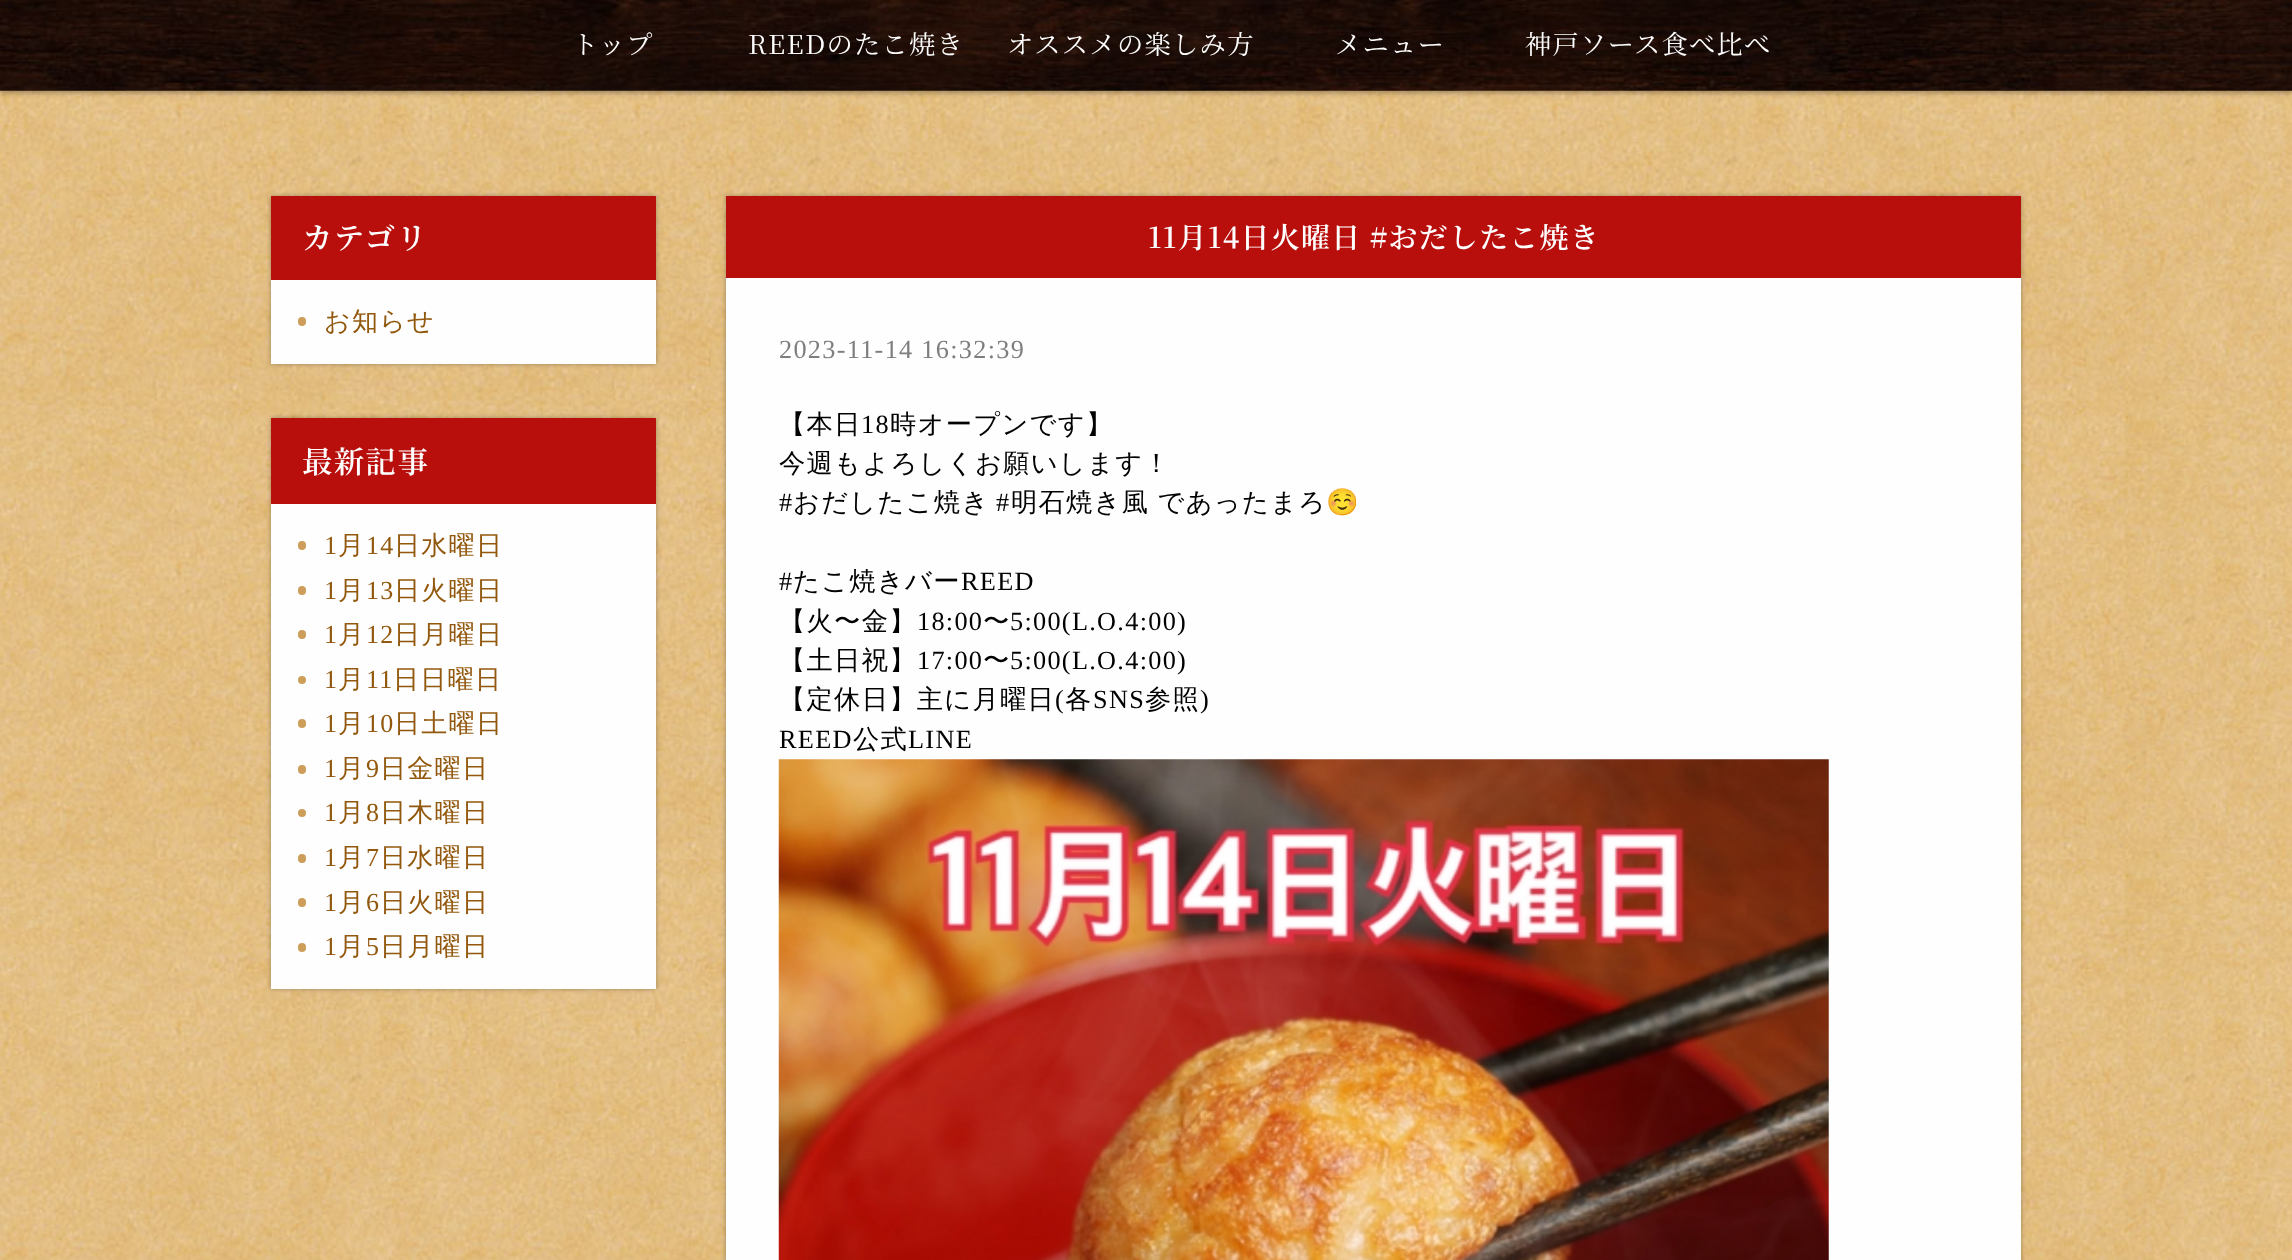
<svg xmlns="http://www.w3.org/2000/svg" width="2292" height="1260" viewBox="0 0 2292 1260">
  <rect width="100%" height="100%" fill="rgb(255,255,255)"/>
  <image x="0" y="90" width="2292" height="1170" href="pic1.png"/>
  <rect x="0" y="0" width="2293" height="93" fill="rgba(0,0,0,0.3)" filter="blur(2.5px)"/>
  <image x="0" y="0" width="2292" height="91" href="pic2.png"/>
  <g font-family="Noto Serif JP" font-size="26.25" letter-spacing="1.3" fill="rgb(254,254,254)">
    <text x="572" y="54">トップ</text>
    <text x="748" y="54">REEDのたこ焼き</text>
    <text x="1007" y="54">オススメの楽しみ方</text>
    <text x="1335" y="54">メニュー</text>
    <text x="1525" y="54">神戸ソース食べ比べ</text>
  </g>
  <rect x="271" y="196" width="385" height="168" fill="rgba(0,0,0,0.3)" filter="blur(2.5px)"/>
  <rect x="271" y="280" width="385" height="84" fill="rgb(254,254,254)"/>
  <rect x="271" y="196" width="385" height="84" fill="rgb(184,14,12)"/>
  <text x="302" y="249" font-family="Noto Serif JP" font-size="30.5" font-weight="600" letter-spacing="1.3" fill="rgb(254,254,254)">カテゴリ</text>
  <rect x="298" y="317" width="8" height="9" rx="4" fill="rgb(204,158,90)"/>
  <text x="324" y="330" font-family="WenQuanYi Zen Hei" font-size="26" font-weight="500" letter-spacing="1.3" fill="rgb(146,88,13)">お知らせ</text>
  <rect x="271" y="418" width="385" height="571" fill="rgba(0,0,0,0.3)" filter="blur(2.5px)"/>
  <rect x="271" y="504" width="385" height="485" fill="rgb(254,254,254)"/>
  <rect x="271" y="418" width="385" height="86" fill="rgb(184,14,12)"/>
  <text x="302" y="473" font-family="Noto Serif JP" font-size="30.5" font-weight="600" letter-spacing="1.3" fill="rgb(254,254,254)">最新記事</text>
  <rect x="298" y="541" width="8" height="9" rx="4" fill="rgb(204,158,90)"/>
  <text x="324" y="554" font-family="Liberation Serif" font-size="26" letter-spacing="1.3" fill="rgb(146,88,13)">1</text>
  <text x="338" y="554" font-family="WenQuanYi Zen Hei" font-size="26" font-weight="500" letter-spacing="1.3" fill="rgb(146,88,13)">月</text>
  <text x="366" y="554" font-family="Liberation Serif" font-size="26" letter-spacing="1.3" fill="rgb(146,88,13)">14</text>
  <text x="394" y="554" font-family="WenQuanYi Zen Hei" font-size="26" font-weight="500" letter-spacing="1.3" fill="rgb(146,88,13)">日水曜日</text>
  <rect x="298" y="586" width="8" height="9" rx="4" fill="rgb(204,158,90)"/>
  <text x="324" y="599" font-family="Liberation Serif" font-size="26" letter-spacing="1.3" fill="rgb(146,88,13)">1</text>
  <text x="338" y="599" font-family="WenQuanYi Zen Hei" font-size="26" font-weight="500" letter-spacing="1.3" fill="rgb(146,88,13)">月</text>
  <text x="366" y="599" font-family="Liberation Serif" font-size="26" letter-spacing="1.3" fill="rgb(146,88,13)">13</text>
  <text x="394" y="599" font-family="WenQuanYi Zen Hei" font-size="26" font-weight="500" letter-spacing="1.3" fill="rgb(146,88,13)">日火曜日</text>
  <rect x="298" y="630" width="8" height="9" rx="4" fill="rgb(204,158,90)"/>
  <text x="324" y="643" font-family="Liberation Serif" font-size="26" letter-spacing="1.3" fill="rgb(146,88,13)">1</text>
  <text x="338" y="643" font-family="WenQuanYi Zen Hei" font-size="26" font-weight="500" letter-spacing="1.3" fill="rgb(146,88,13)">月</text>
  <text x="366" y="643" font-family="Liberation Serif" font-size="26" letter-spacing="1.3" fill="rgb(146,88,13)">12</text>
  <text x="394" y="643" font-family="WenQuanYi Zen Hei" font-size="26" font-weight="500" letter-spacing="1.3" fill="rgb(146,88,13)">日月曜日</text>
  <circle cx="302" cy="680" r="4" fill="rgb(204,158,90)"/>
  <text x="324" y="688" font-family="Liberation Serif" font-size="26" letter-spacing="1.3" fill="rgb(146,88,13)">1</text>
  <text x="338" y="688" font-family="WenQuanYi Zen Hei" font-size="26" font-weight="500" letter-spacing="1.3" fill="rgb(146,88,13)">月</text>
  <text x="366" y="688" font-family="Liberation Serif" font-size="26" letter-spacing="1.3" fill="rgb(146,88,13)">11</text>
  <text x="393" y="688" font-family="WenQuanYi Zen Hei" font-size="26" font-weight="500" letter-spacing="1.3" fill="rgb(146,88,13)">日日曜日</text>
  <rect x="298" y="719" width="8" height="9" rx="4" fill="rgb(204,158,90)"/>
  <text x="324" y="732" font-family="Liberation Serif" font-size="26" letter-spacing="1.3" fill="rgb(146,88,13)">1</text>
  <text x="338" y="732" font-family="WenQuanYi Zen Hei" font-size="26" font-weight="500" letter-spacing="1.3" fill="rgb(146,88,13)">月</text>
  <text x="366" y="732" font-family="Liberation Serif" font-size="26" letter-spacing="1.3" fill="rgb(146,88,13)">10</text>
  <text x="394" y="732" font-family="WenQuanYi Zen Hei" font-size="26" font-weight="500" letter-spacing="1.3" fill="rgb(146,88,13)">日土曜日</text>
  <rect x="298" y="765" width="8" height="9" rx="4" fill="rgb(204,158,90)"/>
  <text x="324" y="777" font-family="Liberation Serif" font-size="26" letter-spacing="1.3" fill="rgb(146,88,13)">1</text>
  <text x="338" y="777" font-family="WenQuanYi Zen Hei" font-size="26" font-weight="500" letter-spacing="1.3" fill="rgb(146,88,13)">月</text>
  <text x="366" y="777" font-family="Liberation Serif" font-size="26" letter-spacing="1.3" fill="rgb(146,88,13)">9</text>
  <text x="380" y="777" font-family="WenQuanYi Zen Hei" font-size="26" font-weight="500" letter-spacing="1.3" fill="rgb(146,88,13)">日金曜日</text>
  <circle cx="302" cy="813" r="4" fill="rgb(204,158,90)"/>
  <text x="324" y="821" font-family="Liberation Serif" font-size="26" letter-spacing="1.3" fill="rgb(146,88,13)">1</text>
  <text x="338" y="821" font-family="WenQuanYi Zen Hei" font-size="26" font-weight="500" letter-spacing="1.3" fill="rgb(146,88,13)">月</text>
  <text x="366" y="821" font-family="Liberation Serif" font-size="26" letter-spacing="1.3" fill="rgb(146,88,13)">8</text>
  <text x="380" y="821" font-family="WenQuanYi Zen Hei" font-size="26" font-weight="500" letter-spacing="1.3" fill="rgb(146,88,13)">日木曜日</text>
  <rect x="298" y="854" width="8" height="9" rx="4" fill="rgb(204,158,90)"/>
  <text x="324" y="866" font-family="Liberation Serif" font-size="26" letter-spacing="1.3" fill="rgb(146,88,13)">1</text>
  <text x="338" y="866" font-family="WenQuanYi Zen Hei" font-size="26" font-weight="500" letter-spacing="1.3" fill="rgb(146,88,13)">月</text>
  <text x="366" y="866" font-family="Liberation Serif" font-size="26" letter-spacing="1.3" fill="rgb(146,88,13)">7</text>
  <text x="380" y="866" font-family="WenQuanYi Zen Hei" font-size="26" font-weight="500" letter-spacing="1.3" fill="rgb(146,88,13)">日水曜日</text>
  <rect x="298" y="898" width="8" height="9" rx="4" fill="rgb(204,158,90)"/>
  <text x="324" y="911" font-family="Liberation Serif" font-size="26" letter-spacing="1.3" fill="rgb(146,88,13)">1</text>
  <text x="338" y="911" font-family="WenQuanYi Zen Hei" font-size="26" font-weight="500" letter-spacing="1.3" fill="rgb(146,88,13)">月</text>
  <text x="366" y="911" font-family="Liberation Serif" font-size="26" letter-spacing="1.3" fill="rgb(146,88,13)">6</text>
  <text x="380" y="911" font-family="WenQuanYi Zen Hei" font-size="26" font-weight="500" letter-spacing="1.3" fill="rgb(146,88,13)">日火曜日</text>
  <rect x="298" y="943" width="8" height="9" rx="4" fill="rgb(204,158,90)"/>
  <text x="324" y="955" font-family="Liberation Serif" font-size="26" letter-spacing="1.3" fill="rgb(146,88,13)">1</text>
  <text x="338" y="955" font-family="WenQuanYi Zen Hei" font-size="26" font-weight="500" letter-spacing="1.3" fill="rgb(146,88,13)">月</text>
  <text x="366" y="955" font-family="Liberation Serif" font-size="26" letter-spacing="1.3" fill="rgb(146,88,13)">5</text>
  <text x="380" y="955" font-family="WenQuanYi Zen Hei" font-size="26" font-weight="500" letter-spacing="1.3" fill="rgb(146,88,13)">日月曜日</text>
  <rect x="726" y="196" width="1295" height="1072" fill="rgba(0,0,0,0.3)" filter="blur(2.5px)"/>
  <rect x="726" y="278" width="1295" height="982" fill="rgb(254,254,254)"/>
  <rect x="726" y="196" width="1295" height="82" fill="rgb(184,14,12)"/>
  <text x="1148" y="248" font-family="Noto Serif JP" font-size="28.9" font-weight="600" letter-spacing="1.3" fill="rgb(254,254,254)">11月14日火曜日 #おだしたこ焼き</text>
  <text x="779" y="358" font-family="Liberation Serif" font-size="26.25" letter-spacing="1.3" fill="rgb(126,126,126)">2023-11-14 16:32:39</text>
  <text x="779" y="433" font-family="WenQuanYi Zen Hei" font-size="26.25" font-weight="500" letter-spacing="1.3" fill="rgb(1,1,1)">【本日</text>
  <text x="861" y="433" font-family="Liberation Serif" font-size="26.25" letter-spacing="1.3" fill="rgb(1,1,1)">18</text>
  <g font-family="WenQuanYi Zen Hei" font-size="26.25" font-weight="500" letter-spacing="1.3" fill="rgb(1,1,1)">
    <text x="890" y="433">時オープンです】</text>
    <text x="779" y="472">今週もよろしくお願いします！</text>
  </g>
  <text x="779" y="511" font-family="Liberation Serif" font-size="26.25" letter-spacing="1.3" fill="rgb(1,1,1)">#</text>
  <text x="793" y="511" font-family="WenQuanYi Zen Hei" font-size="26.25" font-weight="500" letter-spacing="1.3" fill="rgb(1,1,1)">おだしたこ焼き</text>
  <text x="996" y="511" font-family="Liberation Serif" font-size="26.25" letter-spacing="1.3" fill="rgb(1,1,1)">#</text>
  <text x="1011" y="511" word-spacing="-1" font-family="WenQuanYi Zen Hei" font-size="26.25" font-weight="500" letter-spacing="1.3" fill="rgb(1,1,1)">明石焼き風 であったまろ</text>
  <text x="1326" y="511" font-family="Noto Color Emoji" font-size="26.25" letter-spacing="1.3" fill="rgb(1,1,1)">☺️</text>
  <text x="779" y="590" font-family="Liberation Serif" font-size="26.25" letter-spacing="1.3" fill="rgb(1,1,1)">#</text>
  <text x="793" y="590" font-family="WenQuanYi Zen Hei" font-size="26.25" font-weight="500" letter-spacing="1.3" fill="rgb(1,1,1)">たこ焼きバー</text>
  <text x="961" y="590" font-family="Liberation Serif" font-size="26.25" letter-spacing="1.3" fill="rgb(1,1,1)">REED</text>
  <text x="779" y="630" font-family="WenQuanYi Zen Hei" font-size="26.25" font-weight="500" letter-spacing="1.3" fill="rgb(1,1,1)">【火〜金】</text>
  <text x="917" y="630" font-family="Liberation Serif" font-size="26.25" letter-spacing="1.3" fill="rgb(1,1,1)">18:00</text>
  <text x="983" y="630" font-family="WenQuanYi Zen Hei" font-size="26.25" font-weight="500" letter-spacing="1.3" fill="rgb(1,1,1)">〜</text>
  <text x="1010" y="630" font-family="Liberation Serif" font-size="26.25" letter-spacing="1.3" fill="rgb(1,1,1)">5:00(L.O.4:00)</text>
  <text x="779" y="669" font-family="WenQuanYi Zen Hei" font-size="26.25" font-weight="500" letter-spacing="1.3" fill="rgb(1,1,1)">【土日祝】</text>
  <text x="917" y="669" font-family="Liberation Serif" font-size="26.25" letter-spacing="1.3" fill="rgb(1,1,1)">17:00</text>
  <text x="983" y="669" font-family="WenQuanYi Zen Hei" font-size="26.25" font-weight="500" letter-spacing="1.3" fill="rgb(1,1,1)">〜</text>
  <text x="1010" y="669" font-family="Liberation Serif" font-size="26.25" letter-spacing="1.3" fill="rgb(1,1,1)">5:00(L.O.4:00)</text>
  <text x="779" y="708" font-family="WenQuanYi Zen Hei" font-size="26.25" font-weight="500" letter-spacing="1.3" fill="rgb(1,1,1)">【定休日】主に月曜日</text>
  <text x="1055" y="708" font-family="Liberation Serif" font-size="26.25" letter-spacing="1.3" fill="rgb(1,1,1)">(</text>
  <text x="1065" y="708" font-family="WenQuanYi Zen Hei" font-size="26.25" font-weight="500" letter-spacing="1.3" fill="rgb(1,1,1)">各</text>
  <text x="1093" y="708" font-family="Liberation Serif" font-size="26.25" letter-spacing="1.3" fill="rgb(1,1,1)">SNS</text>
  <text x="1145" y="708" font-family="WenQuanYi Zen Hei" font-size="26.25" font-weight="500" letter-spacing="1.3" fill="rgb(1,1,1)">参照</text>
  <g font-family="Liberation Serif" font-size="26.25" letter-spacing="1.3" fill="rgb(1,1,1)">
    <text x="1200" y="708">)</text>
    <text x="779" y="748">REED</text>
  </g>
  <text x="853" y="748" font-family="WenQuanYi Zen Hei" font-size="26.25" font-weight="500" letter-spacing="1.3" fill="rgb(1,1,1)">公式</text>
  <text x="908" y="748" font-family="Liberation Serif" font-size="26.25" letter-spacing="1.3" fill="rgb(1,1,1)">LINE</text>
  <image x="778" y="759" width="1051" height="501" href="pic3.png"/>
</svg>
